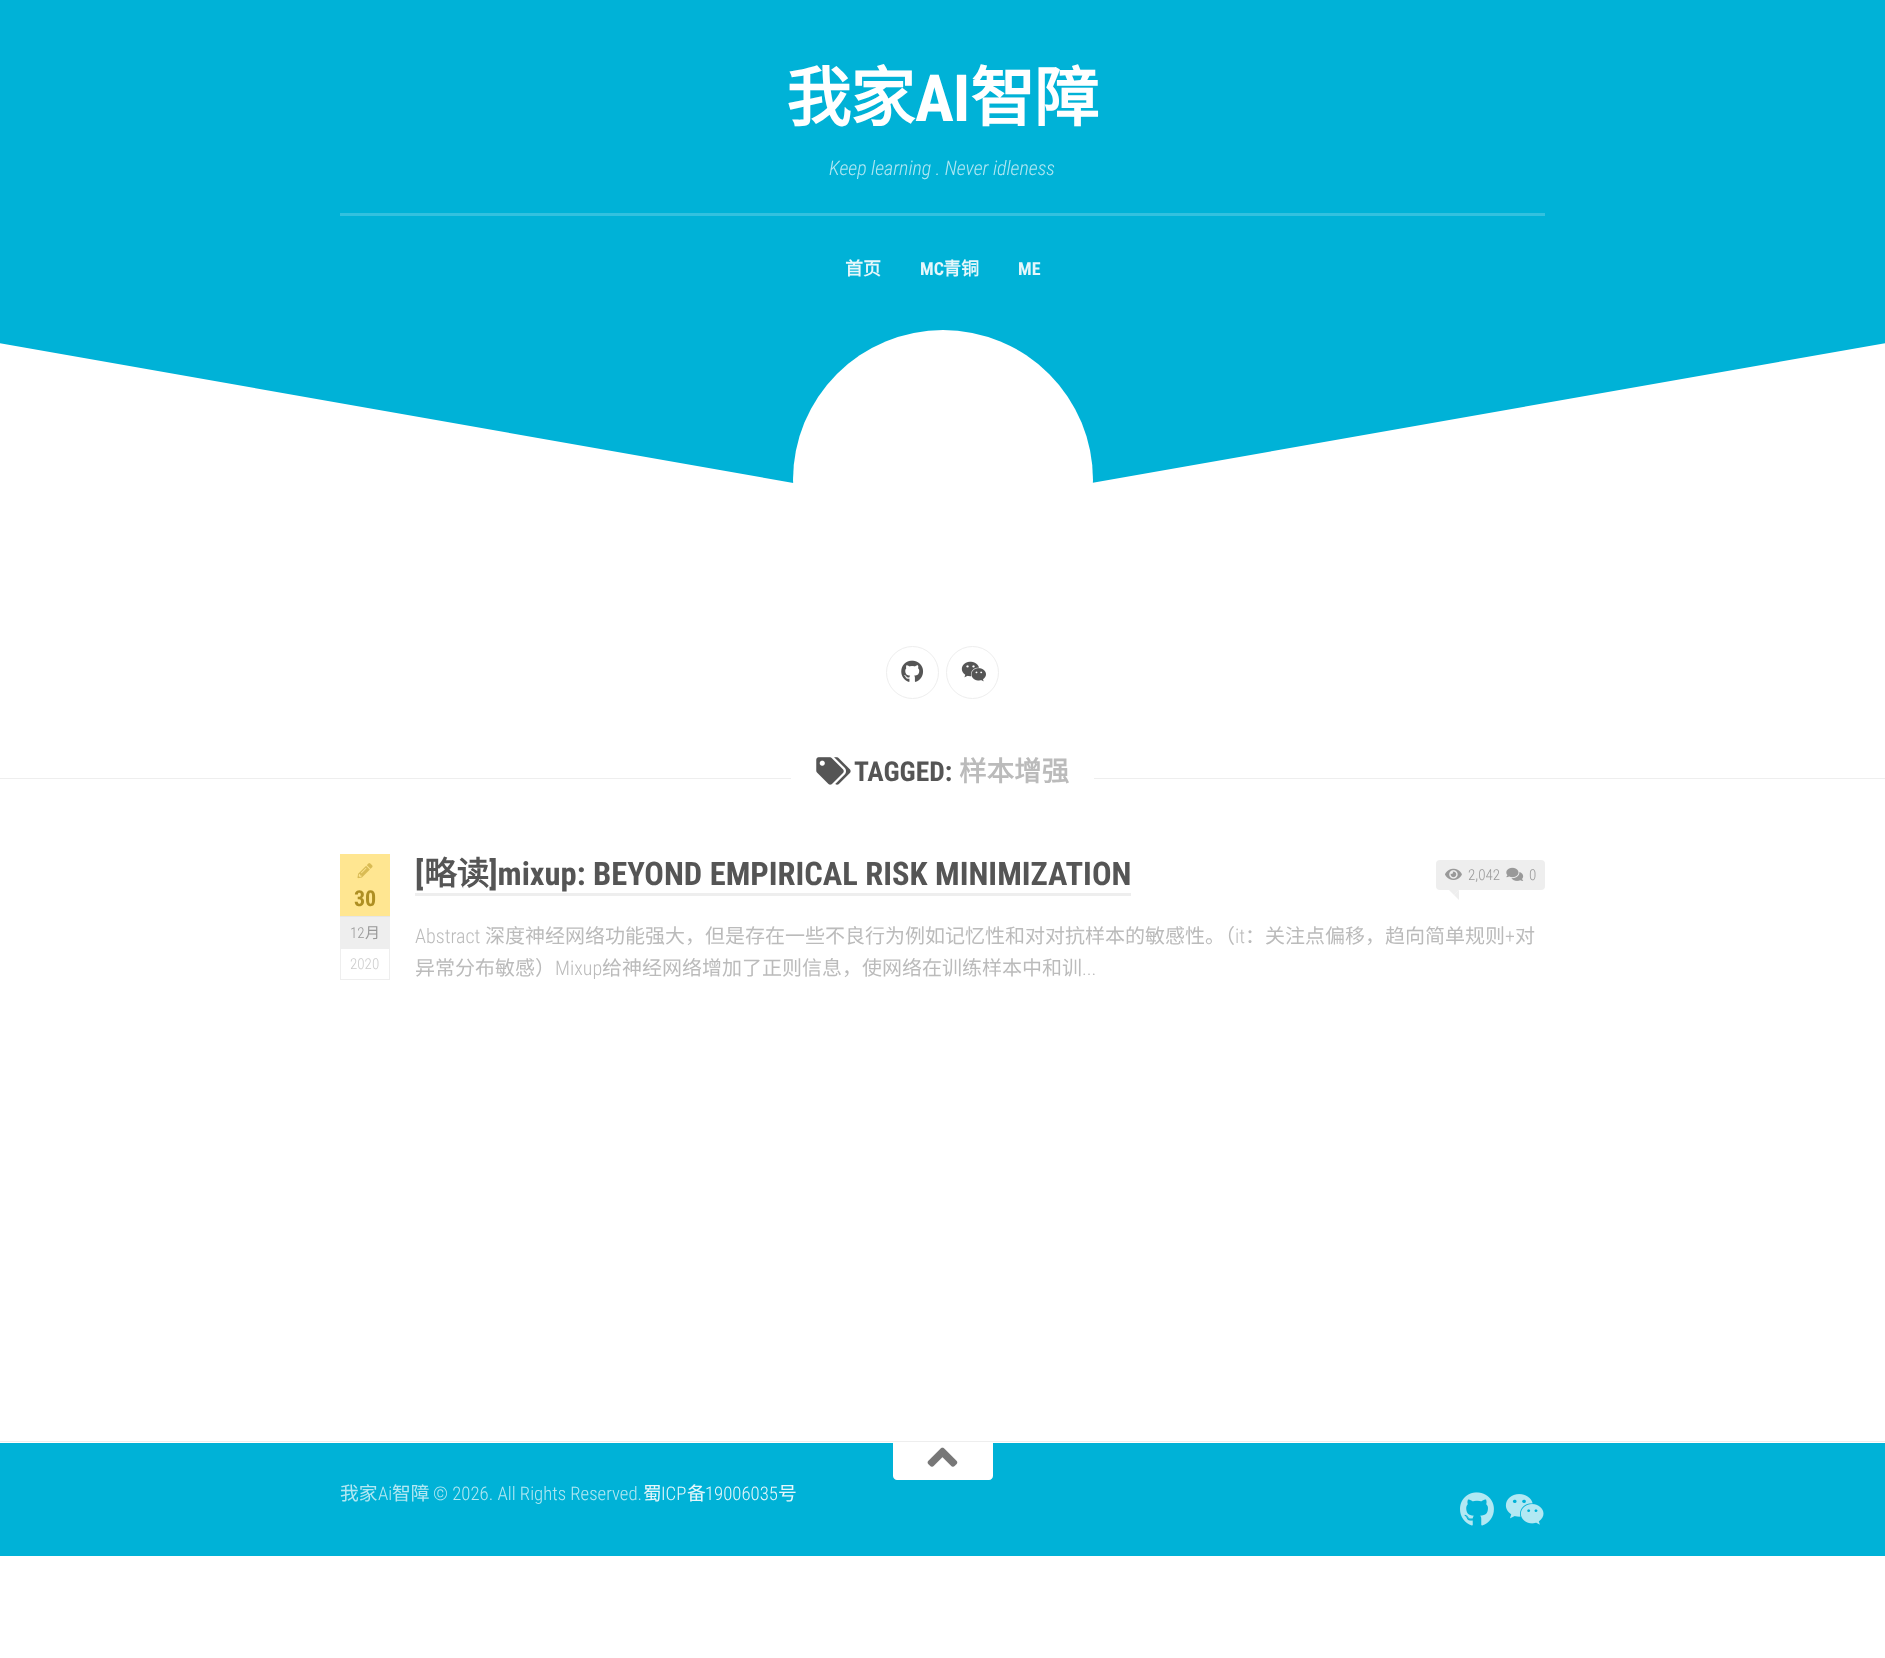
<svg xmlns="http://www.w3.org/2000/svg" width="1885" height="1658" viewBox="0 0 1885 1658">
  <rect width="100%" height="100%" fill="rgb(255,255,255)"/>
  <rect x="0" y="0" width="1885" height="483" fill="rgb(0,178,215)"/>
  <text x="786" y="121" font-family="Noto Sans CJK SC" font-size="65" font-weight="bold" letter-spacing="-1" fill="rgb(255,255,255)">我家</text>
  <text x="915" y="121" font-family="Roboto Condensed" font-size="65" font-weight="bold" letter-spacing="-1" fill="rgb(255,255,255)">AI</text>
  <text x="970" y="121" font-family="Noto Sans CJK SC" font-size="65" font-weight="bold" letter-spacing="-1" fill="rgb(255,255,255)">智障</text>
  <text x="829" y="175" font-family="Roboto Condensed" font-size="20" font-weight="300" font-style="italic" fill="rgb(179,232,243)">Keep learning . Never idleness</text>
  <rect x="340" y="213" width="1205" height="3" fill="rgb(51,193,223)"/>
  <text x="845" y="275" font-family="Noto Sans CJK SC" font-size="18" font-weight="bold" fill="rgb(230,247,251)">首页</text>
  <text x="920" y="275" font-family="Roboto Condensed" font-size="18" font-weight="bold" fill="rgb(230,247,251)">MC</text>
  <text x="943" y="275" font-family="Noto Sans CJK SC" font-size="18" font-weight="bold" fill="rgb(230,247,251)">青铜</text>
  <text x="1018" y="275" font-family="Roboto Condensed" font-size="18" font-weight="bold" fill="rgb(230,247,251)">ME</text>
  <path d="M-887 187L987 517L944 763L-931 433Z" fill="rgb(255,255,255)"/>
  <path d="M898 517L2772 187L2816 433L941 763Z" fill="rgb(255,255,255)"/>
  <circle cx="943" cy="480" r="150" fill="rgb(255,255,255)"/>
  <circle cx="912.5" cy="672.5" r="26" fill="none" stroke="rgb(238,238,238)"/>
  <image x="901" y="660" width="23" height="22" href="pic1.png"/>
  <circle cx="972.5" cy="672.5" r="26" fill="none" stroke="rgb(238,238,238)"/>
  <image x="961" y="661" width="25" height="21" href="pic2.png"/>
  <rect x="0" y="778" width="1885" height="1" fill="rgb(238,238,238)"/>
  <rect x="791" y="778" width="303" height="1" fill="rgb(255,255,255)"/>
  <image x="816" y="757" width="35" height="28" href="pic3.png"/>
  <text x="854" y="781" font-family="Roboto Condensed" font-size="27.5" font-weight="bold" fill="rgb(85,85,85)">TAGGED:</text>
  <text x="959" y="781" font-family="Noto Sans CJK SC" font-size="27.5" font-weight="bold" fill="rgb(187,187,187)">样本增强</text>
  <text x="415" y="885" font-family="Roboto Condensed" font-size="32.5" font-weight="bold" fill="rgb(85,85,85)">[</text>
  <text x="424" y="885" font-family="Noto Sans CJK SC" font-size="32.5" font-weight="bold" fill="rgb(85,85,85)">略读</text>
  <text x="489" y="885" font-family="Roboto Condensed" font-size="32.5" font-weight="bold" fill="rgb(85,85,85)">]mixup: BEYOND EMPIRICAL RISK MINIMIZATION</text>
  <rect x="415" y="893" width="716" height="3" fill="rgb(238,238,238)"/>
  <rect x="1436" y="860" width="109" height="30" rx="4" fill="rgb(238,238,238)"/>
  <image x="1445" y="868" width="17" height="12" href="pic4.png"/>
  <text x="1468" y="880" font-family="Roboto Condensed" font-size="15" font-weight="300" fill="rgb(153,153,153)">2,042</text>
  <image x="1506" y="867" width="18" height="14" href="pic5.png"/>
  <text x="1529" y="880" font-family="Roboto Condensed" font-size="15" font-weight="300" fill="rgb(153,153,153)">0</text>
  <path d="M1449 890H1459L1454 895Z" fill="rgb(238,238,238)"/>
  <path d="M1459 890V900L1454 895Z" fill="rgb(238,238,238)"/>
  <rect x="340" y="854" width="50" height="62" fill="rgb(255,230,145)"/>
  <image x="357" y="863" width="16" height="16" href="pic6.png"/>
  <text x="354" y="906" font-family="Roboto Condensed" font-size="22" font-weight="bold" fill="rgb(174,143,35)">30</text>
  <rect x="340" y="917" width="50" height="31" fill="rgb(238,238,238)"/>
  <rect x="340" y="916" width="50" height="1" fill="rgb(229,229,229)"/>
  <text x="350" y="938" font-family="Roboto Condensed" font-size="15" font-weight="300" fill="rgb(153,153,153)">12</text>
  <text x="365" y="938" font-family="Noto Sans CJK SC" font-size="15" fill="rgb(153,153,153)">月</text>
  <rect x="340.5" y="948.5" width="49" height="31" fill="none" stroke="rgb(238,238,238)"/>
  <text x="350" y="969" font-family="Roboto Condensed" font-size="15" font-weight="300" fill="rgb(204,204,204)">2020</text>
  <text x="415" y="943" font-family="Roboto Condensed" font-size="20" font-weight="300" fill="rgb(187,187,187)">Abstract</text>
  <g font-family="Noto Sans CJK SC" font-size="20" fill="rgb(187,187,187)">
    <text x="485" y="943">深度神经网络功能强大，但是存在一些不良行为例如记忆性和对对抗样本的敏感性。（</text>
    <text x="1245" y="943">：关注点偏移，趋向简单规则</text>
    <text x="1515" y="943">对</text>
  </g>
  <g font-family="Roboto Condensed" font-size="20" font-weight="300" fill="rgb(187,187,187)">
    <text x="1235" y="943">it</text>
    <text x="1505" y="943">+</text>
  </g>
  <text x="415" y="975" font-family="Noto Sans CJK SC" font-size="20" fill="rgb(187,187,187)">异常分布敏感）</text>
  <text x="555" y="975" font-family="Roboto Condensed" font-size="20" font-weight="300" fill="rgb(187,187,187)">Mixup</text>
  <text x="602" y="975" font-family="Noto Sans CJK SC" font-size="20" fill="rgb(187,187,187)">给神经网络增加了正则信息，使网络在训练样本中和训</text>
  <text x="1082" y="975" font-family="Roboto Condensed" font-size="20" font-weight="300" fill="rgb(187,187,187)">...</text>
  <rect x="0" y="1441" width="1885" height="1" fill="rgb(238,238,238)"/>
  <rect x="0" y="1443" width="1885" height="113" fill="rgb(0,178,215)"/>
  <path d="M893 1443H993V1476C993 1478 991 1480 989 1480H897C895 1480 893 1478 893 1476Z" fill="rgb(255,255,255)"/>
  <image x="927" y="1447" width="31" height="20" href="pic7.png"/>
  <text x="340" y="1500" font-family="Noto Sans CJK SC" font-size="18.75" fill="rgb(179,232,243)">我家</text>
  <text x="378" y="1500" font-family="Roboto Condensed" font-size="18.75" font-weight="300" fill="rgb(179,232,243)">Ai</text>
  <text x="392" y="1500" font-family="Noto Sans CJK SC" font-size="18.75" fill="rgb(179,232,243)">智障</text>
  <text x="433" y="1500" font-family="Roboto Condensed" font-size="18.75" font-weight="300" fill="rgb(179,232,243)">© 2026. All Rights Reserved.</text>
  <text x="643" y="1500" font-family="Noto Sans CJK SC" font-size="18.75" fill="rgb(230,247,251)">蜀</text>
  <text x="661" y="1500" font-family="Roboto Condensed" font-size="18.75" font-weight="300" fill="rgb(230,247,251)">ICP</text>
  <text x="687" y="1500" font-family="Noto Sans CJK SC" font-size="18.75" fill="rgb(230,247,251)">备</text>
  <text x="705" y="1500" font-family="Roboto Condensed" font-size="18.75" font-weight="300" fill="rgb(230,247,251)">19006035</text>
  <text x="778" y="1500" font-family="Noto Sans CJK SC" font-size="18.75" fill="rgb(230,247,251)">号</text>
  <image x="1460" y="1492" width="34" height="34" href="pic8.png"/>
  <image x="1505" y="1494" width="39" height="31" href="pic9.png"/>
</svg>
